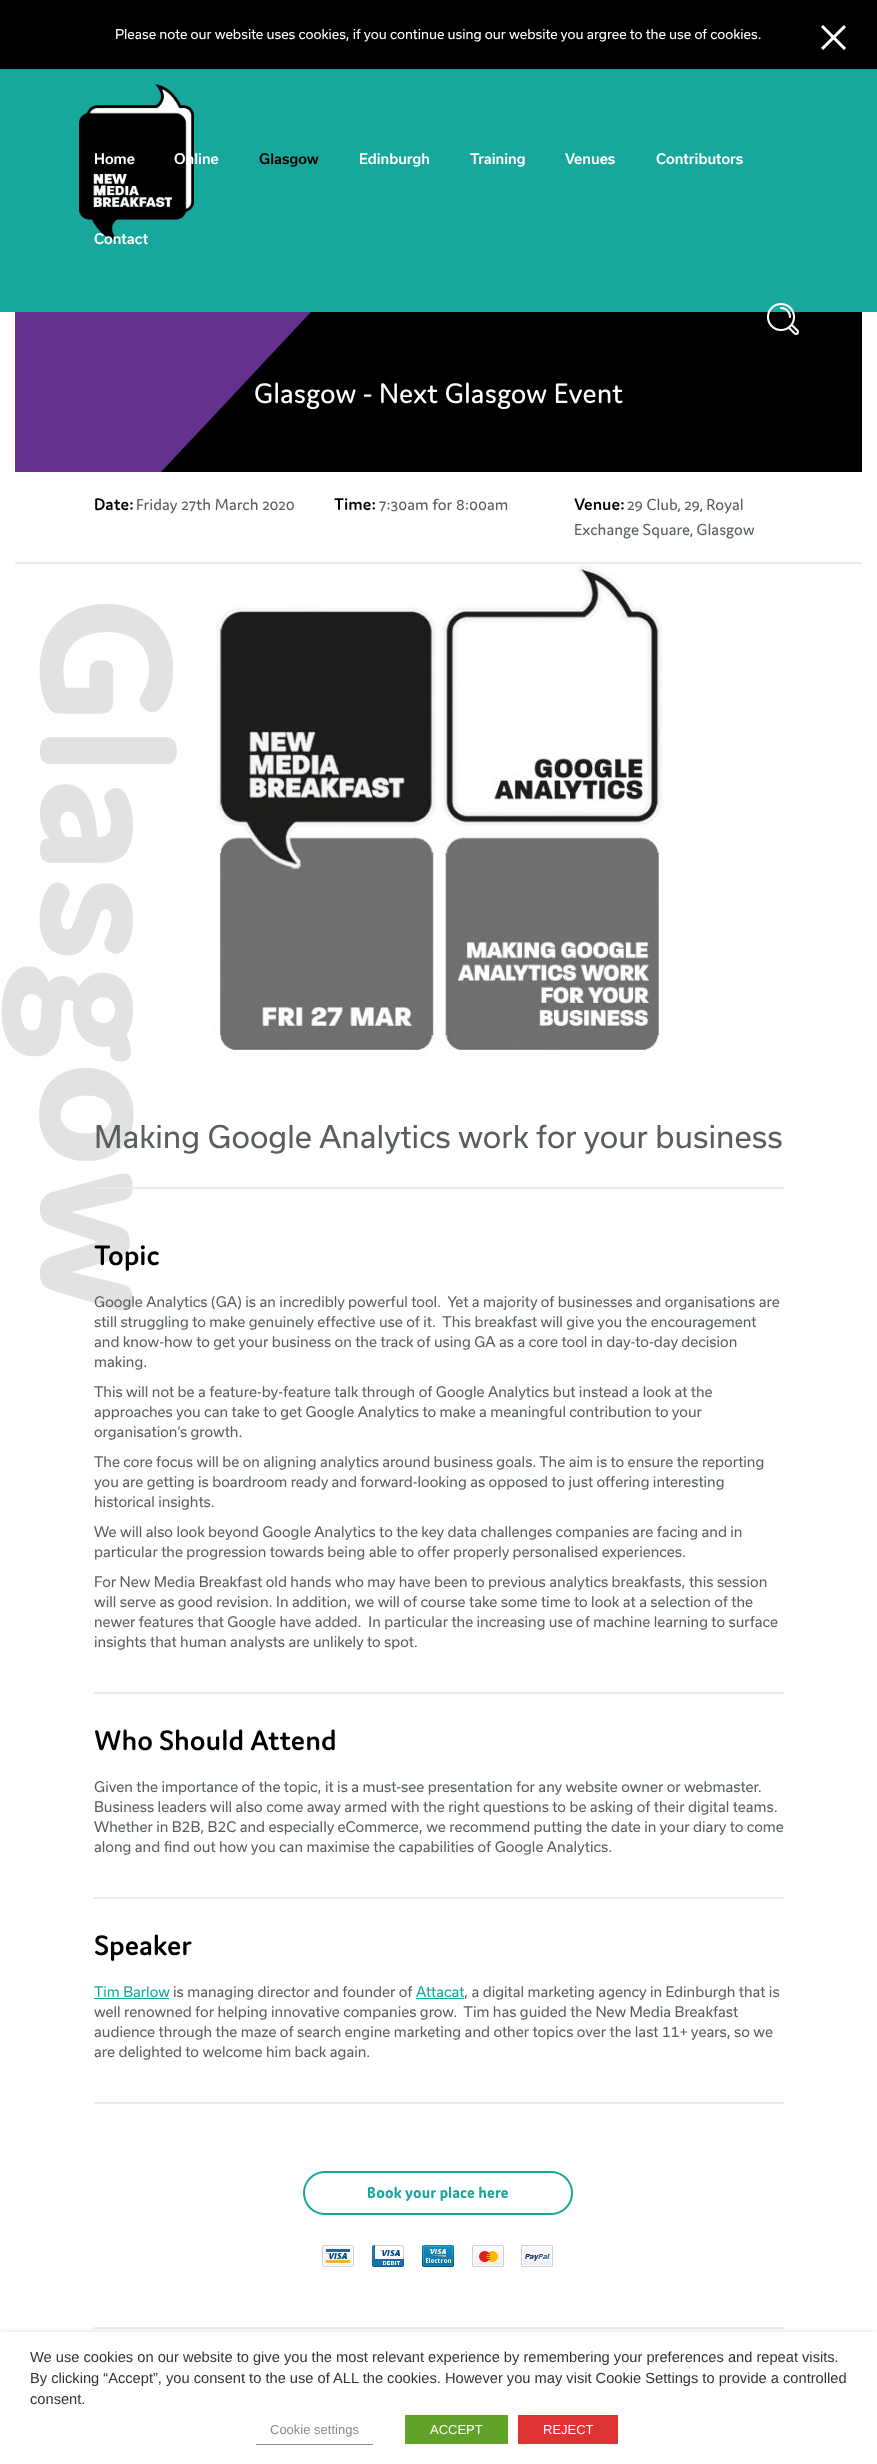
<svg xmlns="http://www.w3.org/2000/svg" width="877" height="2464" viewBox="0 0 877 2464">
  <defs>
    <clipPath id="clip1"><rect x="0" y="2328" width="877" height="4"/></clipPath>
  </defs>
  <rect width="100%" height="100%" fill="rgb(255,255,255)"/>
  <rect x="0" y="0" width="877" height="69" fill="rgb(0,0,0)"/>
  <text x="115" y="39" font-family="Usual" font-size="13" fill="rgb(255,255,255)">Please note our website uses cookies, if you continue using our website you argree to the use of cookies.</text>
  <image x="821" y="25" width="25" height="25" href="pic1.png"/>
  <rect x="0" y="69" width="877" height="243" fill="rgb(24,167,157)"/>
  <image x="79" y="84" width="115" height="157" href="pic2.png"/>
  <g font-family="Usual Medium" font-size="14" font-weight="500" fill="rgb(255,255,255)">
    <text x="94" y="164">Home</text>
    <text x="174" y="164">Online</text>
  </g>
  <text x="259" y="164" font-family="Usual Medium" font-size="14" font-weight="500" fill="rgb(0,0,0)">Glasgow</text>
  <g font-family="Usual Medium" font-size="14" font-weight="500" fill="rgb(255,255,255)">
    <text x="359" y="164">Edinburgh</text>
    <text x="470" y="164">Training</text>
    <text x="565" y="164">Venues</text>
    <text x="656" y="164">Contributors</text>
    <text x="94" y="244">Contact</text>
  </g>
  <rect x="311" y="312" width="551" height="160" fill="rgb(0,0,0)"/>
  <image x="767" y="303" width="32" height="32" href="pic3.png"/>
  <rect x="15" y="312" width="296" height="160" fill="rgb(101,49,143)"/>
  <path d="M311 472H161L311 312Z" fill="rgb(0,0,0)"/>
  <text x="254" y="403" font-family="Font" font-size="30" fill="rgb(255,255,255)">Glasgow - Next Glasgow Event</text>
  <rect x="15" y="562" width="847" height="2" fill="rgb(234,234,234)"/>
  <text x="94" y="510" font-family="Font" font-size="18" font-weight="500" fill="rgb(0,0,0)">Date:</text>
  <text x="136" y="510" font-family="Font" font-size="17" fill="rgb(89,95,96)">Friday 27th March 2020</text>
  <text x="334" y="510" font-family="Font" font-size="18" font-weight="500" fill="rgb(0,0,0)">Time:</text>
  <text x="379" y="510" font-family="Font" font-size="17" fill="rgb(89,95,96)">7:30am for 8:00am</text>
  <text x="574" y="510" font-family="Font" font-size="18" font-weight="500" fill="rgb(0,0,0)">Venue:</text>
  <g font-family="Font" font-size="17" fill="rgb(89,95,96)">
    <text x="627" y="510">29 Club, 29, Royal</text>
    <text x="574" y="535">Exchange Square, Glasgow</text>
  </g>
  <text x="41" y="597" transform="rotate(90 41 597)" font-family="Font" font-size="200" font-weight="600" letter-spacing="2" fill="rgb(226,226,226)">Glasgow</text>
  <rect x="94" y="1692" width="690" height="2" fill="rgb(234,234,234)"/>
  <image x="213" y="565" width="449" height="488" href="pic4.png"/>
  <rect x="94" y="1187" width="690" height="2" fill="rgb(234,234,234)"/>
  <text x="94" y="1148" font-family="Usual" font-size="30" fill="rgb(89,95,96)">Making Google Analytics work for your business</text>
  <text x="94" y="1265" font-family="Font" font-size="30" font-weight="500" fill="rgb(0,0,0)">Topic</text>
  <g font-family="Usual" font-size="14" fill="rgb(89,95,96)">
    <text xml:space="preserve"><tspan x="94" y="1307">Google Analytics (GA) is an incredibly powerful tool.  Yet a majority of businesses and organisations are</tspan><tspan x="94" y="1327">still struggling to make genuinely effective use of it.  This breakfast will give you the encouragement</tspan><tspan x="94" y="1347">and know-how to get your business on the track of using GA as a core tool in day-to-day decision</tspan><tspan x="94" y="1367">making.</tspan></text>
    <text>
      <tspan x="94" y="1397">This will not be a feature-by-feature talk through of Google Analytics but instead a look at the</tspan>
      <tspan x="94" y="1417">approaches you can take to get Google Analytics to make a meaningful contribution to your</tspan>
      <tspan x="94" y="1437">organisation’s growth.</tspan>
    </text>
    <text>
      <tspan x="94" y="1467">The core focus will be on aligning analytics around business goals. The aim is to ensure the reporting</tspan>
      <tspan x="94" y="1487">you are getting is boardroom ready and forward-looking as opposed to just offering interesting</tspan>
      <tspan x="94" y="1507">historical insights.</tspan>
    </text>
    <text>
      <tspan x="94" y="1537">We will also look beyond Google Analytics to the key data challenges companies are facing and in</tspan>
      <tspan x="94" y="1557">particular the progression towards being able to offer properly personalised experiences.</tspan>
    </text>
    <text xml:space="preserve"><tspan x="94" y="1587">For New Media Breakfast old hands who may have been to previous analytics breakfasts, this session</tspan><tspan x="94" y="1607">will serve as good revision. In addition, we will of course take some time to look at a selection of the</tspan><tspan x="94" y="1627">newer features that Google have added.  In particular the increasing use of machine learning to surface</tspan><tspan x="94" y="1647">insights that human analysts are unlikely to spot.</tspan></text>
  </g>
  <rect x="94" y="1897" width="690" height="2" fill="rgb(234,234,234)"/>
  <text x="94" y="1750" font-family="Font" font-size="30" font-weight="500" fill="rgb(0,0,0)">Who Should Attend</text>
  <g font-family="Usual" font-size="14" fill="rgb(89,95,96)">
    <text>
      <tspan x="94" y="1792">Given the importance of the topic, it is a must-see presentation for any website owner or webmaster.</tspan>
      <tspan x="94" y="1812">Business leaders will also come away armed with the right questions to be asking of their digital teams.</tspan>
      <tspan x="94" y="1832">Whether in B2B, B2C and especially eCommerce, we recommend putting the date in your diary to come</tspan>
      <tspan x="94" y="1852">along and find out how you can maximise the capabilities of Google Analytics.</tspan>
    </text>
  </g>
  <rect x="94" y="2102" width="690" height="2" fill="rgb(234,234,234)"/>
  <text x="94" y="1955" font-family="Font" font-size="30" font-weight="500" fill="rgb(0,0,0)">Speaker</text>
  <text x="94" y="1997" font-family="Usual" font-size="14" fill="rgb(24,167,157)">Tim Barlow</text>
  <rect x="94" y="1998" width="75" height="1" fill="rgb(24,167,157)"/>
  <text x="173" y="1997" font-family="Usual" font-size="14" fill="rgb(89,95,96)">is managing director and founder of</text>
  <text x="416" y="1997" font-family="Usual" font-size="14" fill="rgb(24,167,157)">Attacat</text>
  <rect x="416" y="1998" width="48" height="1" fill="rgb(24,167,157)"/>
  <g font-family="Usual" font-size="14" fill="rgb(89,95,96)">
    <text x="464" y="1997">, a digital marketing agency in Edinburgh that is</text>
    <text xml:space="preserve"><tspan x="94" y="2017">well renowned for helping innovative companies grow.  Tim has guided the New Media Breakfast</tspan><tspan x="94" y="2037">audience through the maze of search engine marketing and other topics over the last 11+ years, so we</tspan><tspan x="94" y="2057">are delighted to welcome him back again.</tspan></text>
  </g>
  <rect x="94" y="2327" width="690" height="2" fill="rgb(234,234,234)"/>
  <image x="303" y="2171" width="270" height="96" href="pic5.png"/>
  <rect x="640" y="2423" width="135" height="1" fill="rgb(248,252,252)"/>
  <g clip-path="url(#clip1)">
    <rect x="0" y="2337" width="877" height="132" fill="rgba(0,0,0,0.5)" filter="blur(5px)"/>
  </g>
  <g font-family="Liberation Sans" font-size="14.67" fill="rgb(51,51,51)">
    <text>
      <tspan x="30" y="2362">We use cookies on our website to give you the most relevant experience by remembering your preferences and repeat visits.</tspan>
      <tspan x="30" y="2383">By clicking “Accept”, you consent to the use of ALL the cookies. However you may visit Cookie Settings to provide a controlled</tspan>
      <tspan x="30" y="2404">consent.</tspan>
    </text>
  </g>
  <rect x="256" y="2444" width="117" height="1" fill="rgb(137,136,136)"/>
  <text x="270" y="2434" font-family="Liberation Sans" font-size="13" fill="rgb(137,136,136)">Cookie settings</text>
  <rect x="405" y="2415" width="103" height="29" fill="rgb(97,162,41)"/>
  <text x="430" y="2434" font-family="Liberation Sans" font-size="13" fill="rgb(255,255,255)">ACCEPT</text>
  <rect x="518" y="2415" width="100" height="29" fill="rgb(221,51,51)"/>
  <text x="543" y="2434" font-family="Liberation Sans" font-size="13" fill="rgb(255,255,255)">REJECT</text>
</svg>
